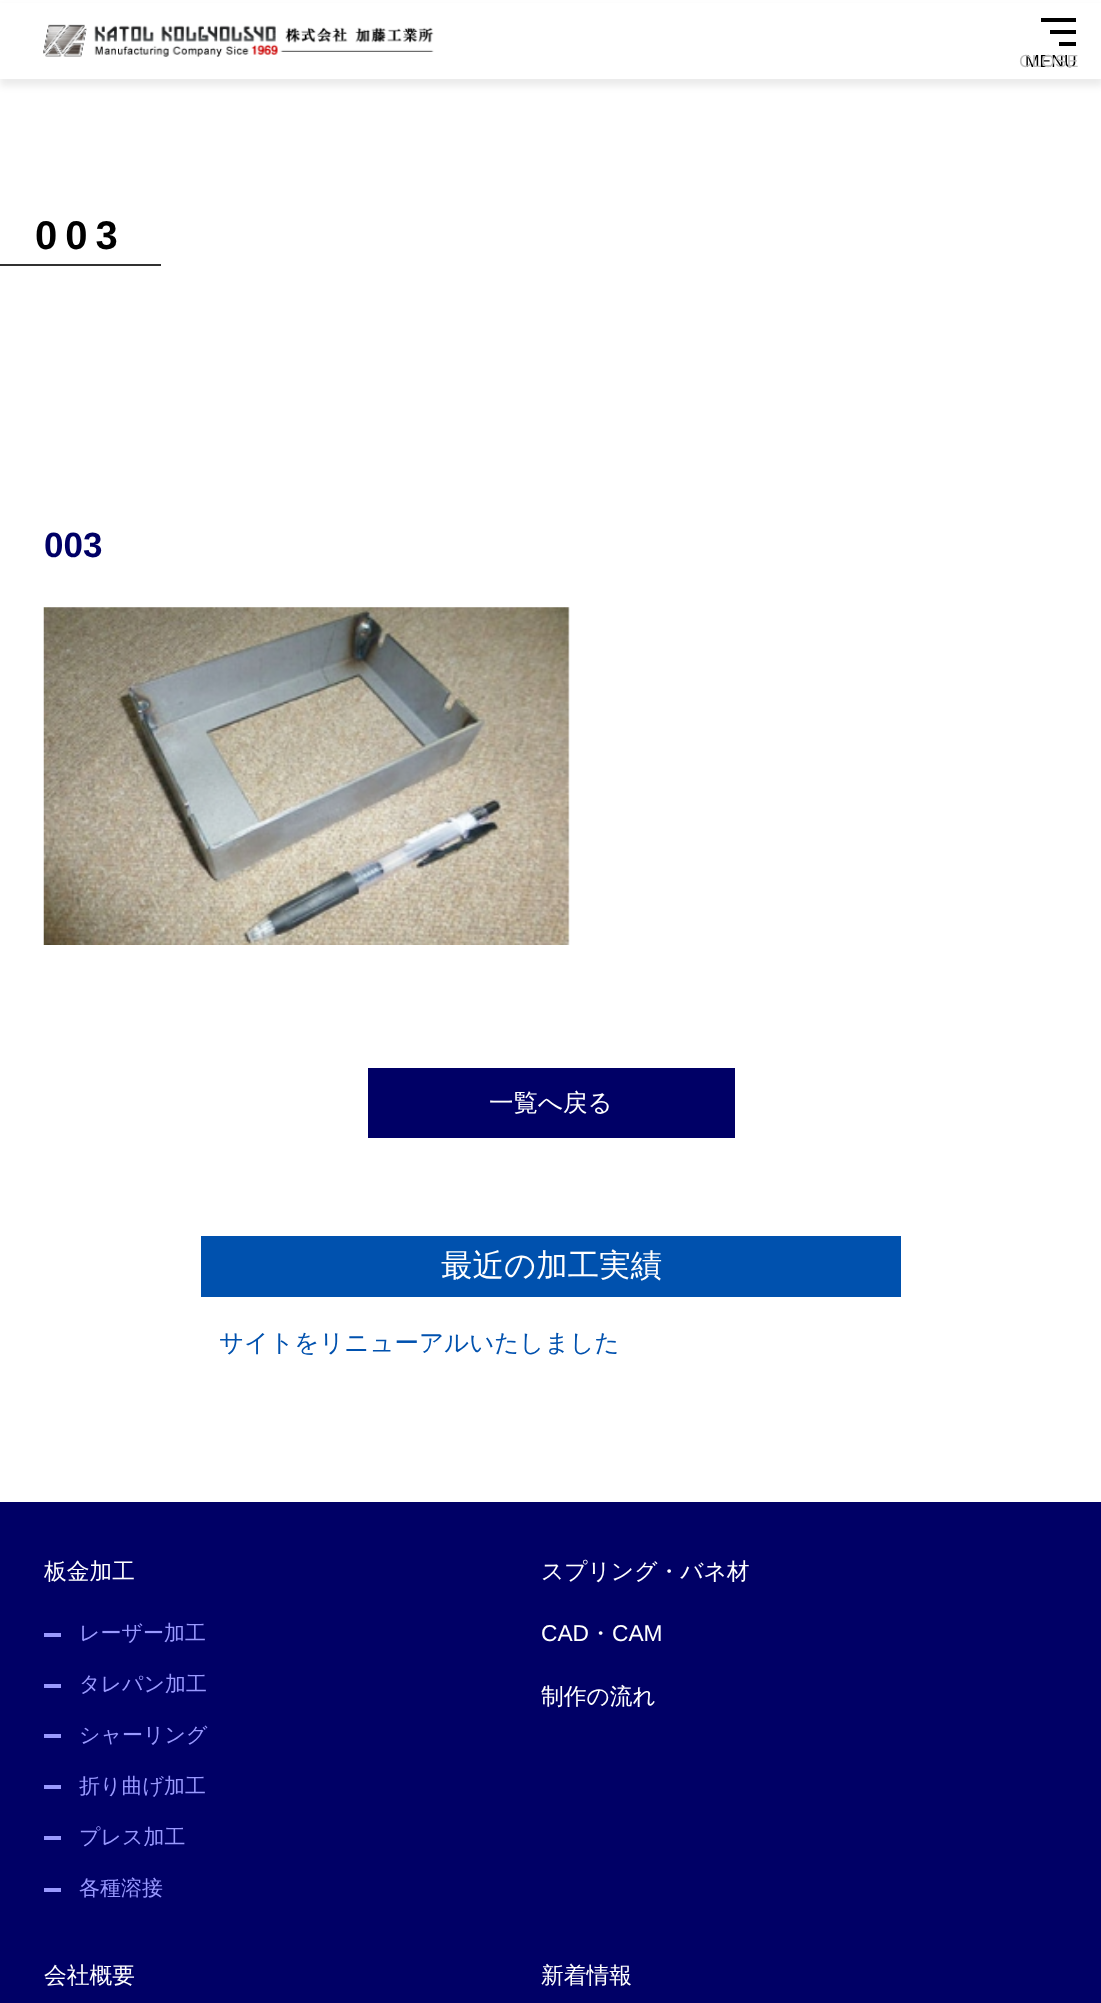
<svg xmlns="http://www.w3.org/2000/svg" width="1101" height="2003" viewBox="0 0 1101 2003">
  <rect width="100%" height="100%" fill="rgb(255,255,255)"/>
  <rect x="0" y="7" width="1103" height="79" fill="rgba(0,0,0,0.08)" filter="blur(3.5px)"/>
  <rect x="0" y="3" width="1101" height="76" fill="rgb(255,255,255)"/>
  <image x="43" y="24" width="391" height="33" href="pic1.png"/>
  <rect x="1041" y="18" width="35" height="4" fill="rgb(0,0,0)"/>
  <rect x="1050" y="30" width="26" height="4" fill="rgb(0,0,0)"/>
  <rect x="1059" y="42" width="17" height="4" fill="rgb(0,0,0)"/>
  <text x="1025" y="67" font-family="Liberation Sans" font-size="17.5" fill="rgb(0,0,0)">MENU</text>
  <text x="1019" y="67" font-family="Liberation Sans" font-size="17.5" fill="rgb(190,190,190)">CLOSE</text>
  <rect x="0" y="264" width="161" height="2" fill="rgb(49,49,49)"/>
  <text x="35" y="249" font-family="Liberation Sans" font-size="40" font-weight="bold" letter-spacing="8" fill="rgb(0,0,0)">003</text>
  <text x="44" y="557" font-family="Liberation Sans" font-size="35" font-weight="bold" fill="rgb(0,0,102)">003</text>
  <image x="43" y="607" width="527" height="338" href="pic2.png"/>
  <rect x="368" y="1068" width="367" height="70" fill="rgb(0,0,102)"/>
  <text x="489" y="1111" font-family="WenQuanYi Zen Hei" font-size="24.5" font-weight="500" fill="rgb(255,255,255)">一覧へ戻る</text>
  <rect x="201" y="1236" width="700" height="61" fill="rgb(0,81,174)"/>
  <text x="441" y="1276" font-family="WenQuanYi Zen Hei" font-size="31.5" font-weight="500" fill="rgb(255,255,255)">最近の加工実績</text>
  <text x="219" y="1351" font-family="WenQuanYi Zen Hei" font-size="24.5" font-weight="500" fill="rgb(0,81,174)">サイトをリニューアルいたしました</text>
  <rect x="0" y="1502" width="1101" height="501" fill="rgb(0,0,102)"/>
  <text x="44" y="1579" font-family="WenQuanYi Zen Hei" font-size="22.75" font-weight="500" fill="rgb(255,255,255)">板金加工</text>
  <rect x="44" y="1633" width="17" height="4" fill="rgb(153,153,255)"/>
  <text x="79" y="1640" font-family="WenQuanYi Zen Hei" font-size="21" font-weight="500" fill="rgb(153,153,255)">レーザー加工</text>
  <rect x="44" y="1684" width="17" height="4" fill="rgb(153,153,255)"/>
  <text x="79" y="1691" font-family="WenQuanYi Zen Hei" font-size="21" font-weight="500" fill="rgb(153,153,255)">タレパン加工</text>
  <rect x="44" y="1734" width="17" height="4" fill="rgb(153,153,255)"/>
  <text x="79" y="1742" font-family="WenQuanYi Zen Hei" font-size="21" font-weight="500" fill="rgb(153,153,255)">シャーリング</text>
  <rect x="44" y="1785" width="17" height="4" fill="rgb(153,153,255)"/>
  <text x="79" y="1793" font-family="WenQuanYi Zen Hei" font-size="21" font-weight="500" fill="rgb(153,153,255)">折り曲げ加工</text>
  <rect x="44" y="1836" width="17" height="4" fill="rgb(153,153,255)"/>
  <text x="79" y="1844" font-family="WenQuanYi Zen Hei" font-size="21" font-weight="500" fill="rgb(153,153,255)">プレス加工</text>
  <rect x="44" y="1888" width="17" height="4" fill="rgb(153,153,255)"/>
  <text x="79" y="1895" font-family="WenQuanYi Zen Hei" font-size="21" font-weight="500" fill="rgb(153,153,255)">各種溶接</text>
  <text x="541" y="1579" font-family="WenQuanYi Zen Hei" font-size="22.75" font-weight="500" fill="rgb(255,255,255)">スプリング・バネ材</text>
  <text x="541" y="1641" font-family="Liberation Sans" font-size="22.75" fill="rgb(255,255,255)">CAD</text>
  <text x="589" y="1641" font-family="WenQuanYi Zen Hei" font-size="22.75" font-weight="500" fill="rgb(255,255,255)">・</text>
  <text x="612" y="1641" font-family="Liberation Sans" font-size="22.75" fill="rgb(255,255,255)">CAM</text>
  <g font-family="WenQuanYi Zen Hei" font-size="22.75" font-weight="500" fill="rgb(255,255,255)">
    <text x="541" y="1704">制作の流れ</text>
    <text x="44" y="1983">会社概要</text>
    <text x="541" y="1983">新着情報</text>
  </g>
</svg>
